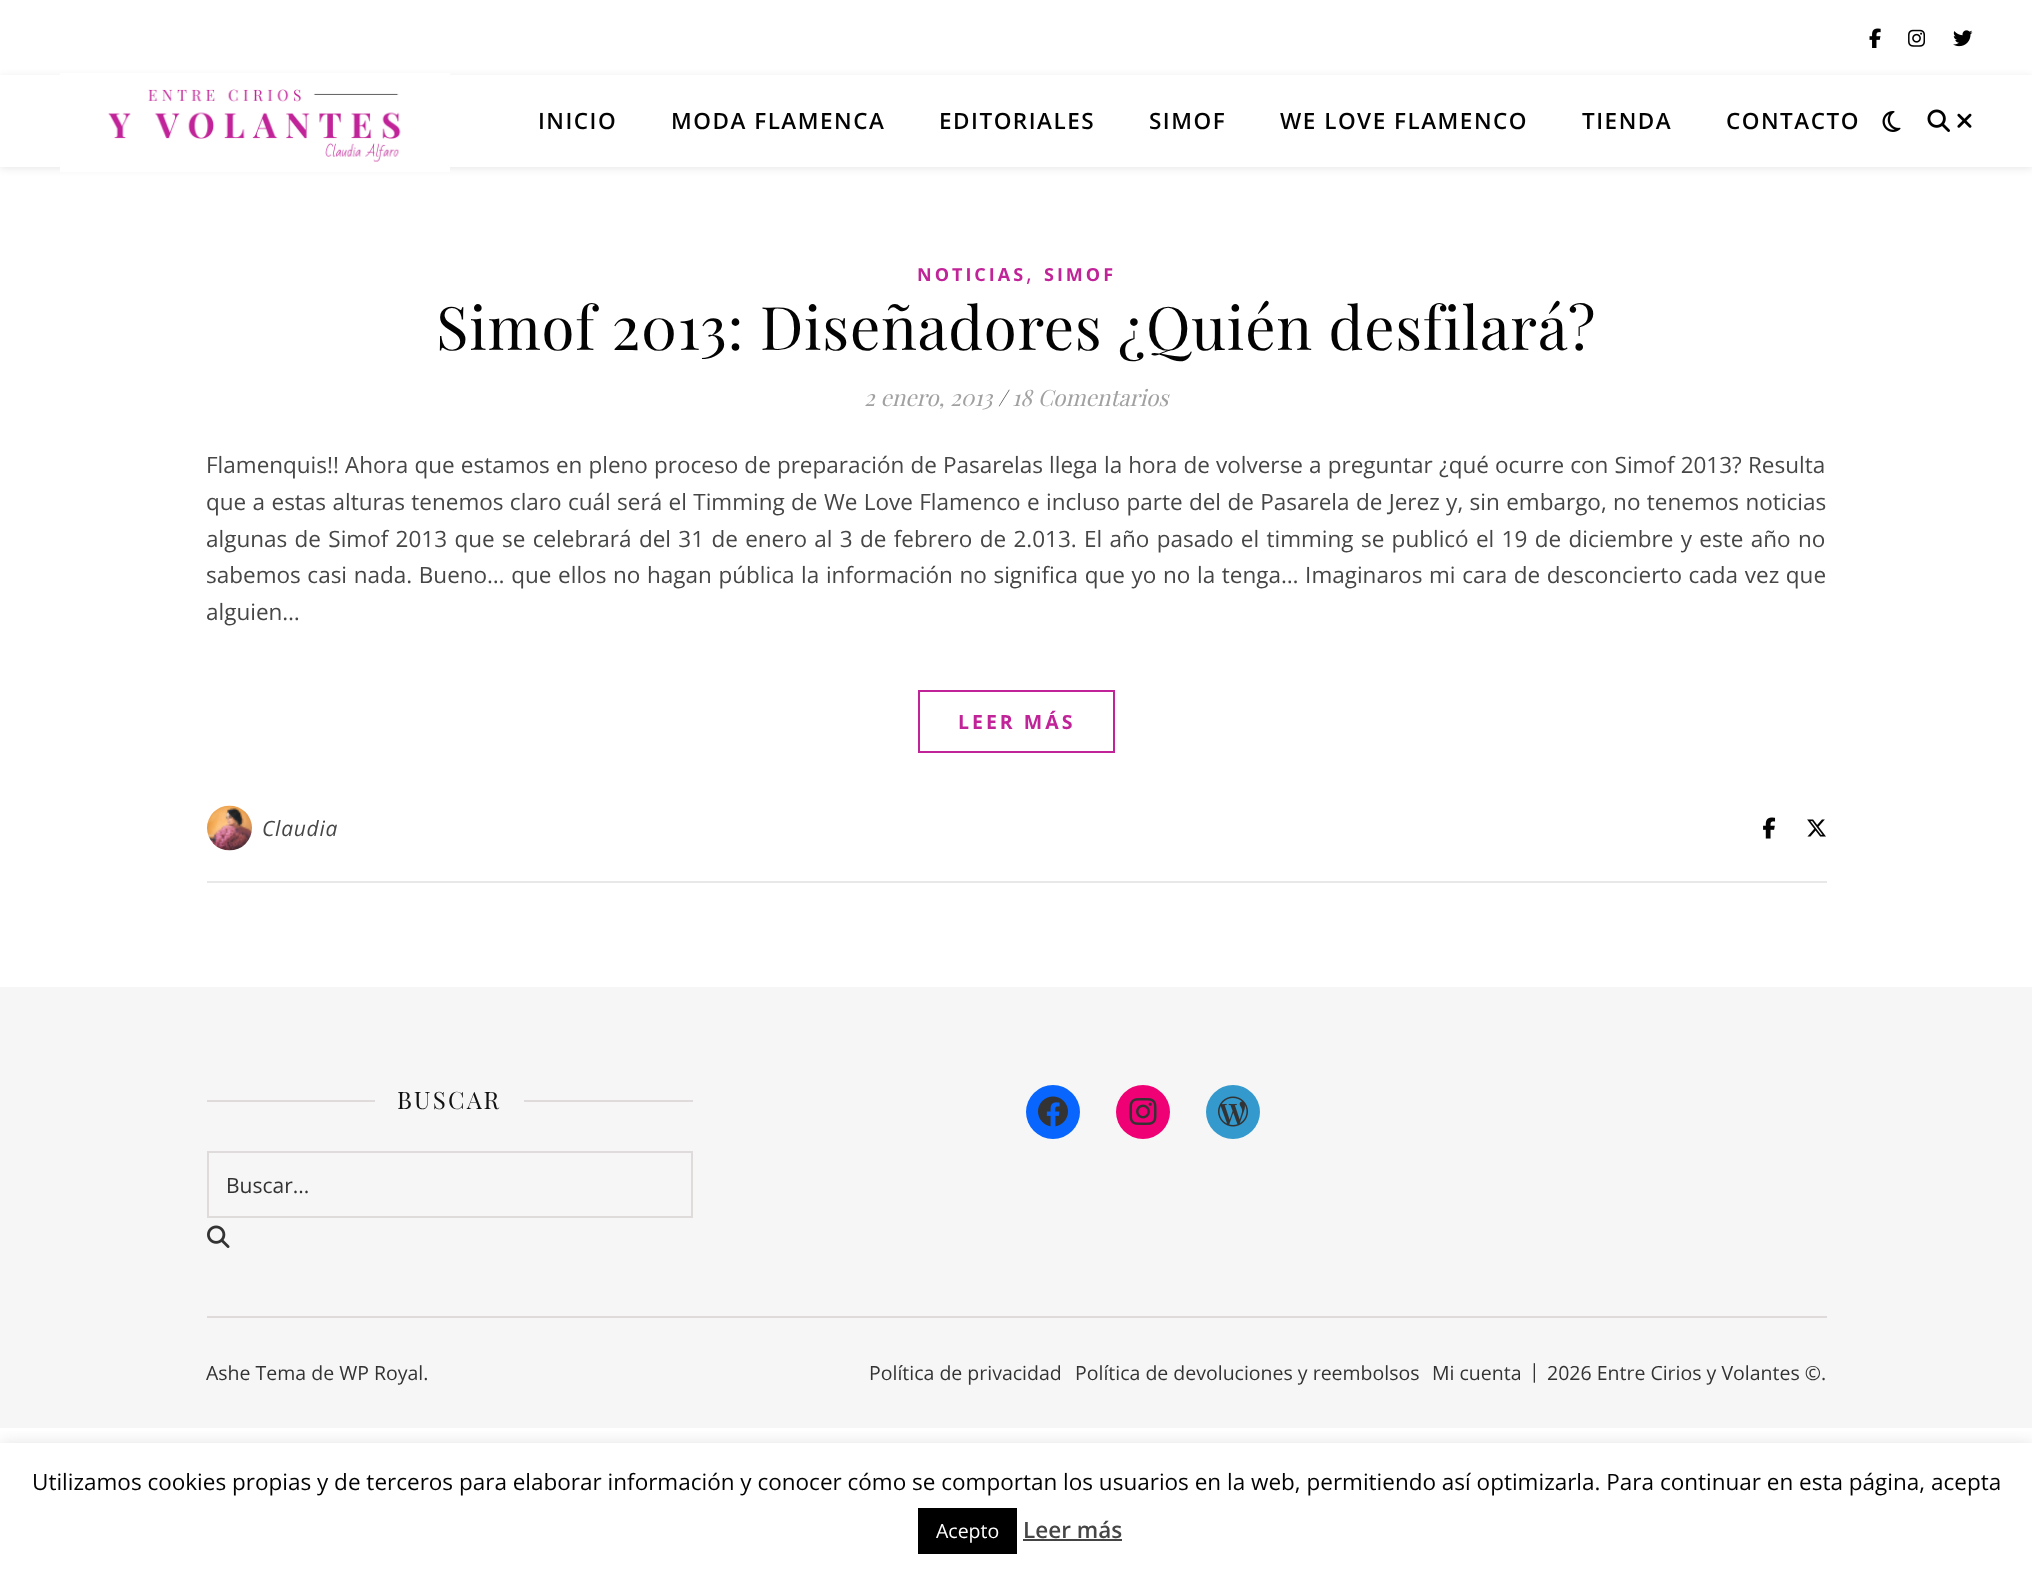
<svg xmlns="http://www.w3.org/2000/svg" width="2032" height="1572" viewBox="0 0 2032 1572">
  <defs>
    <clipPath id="clip1"><rect x="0" y="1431" width="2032" height="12"/></clipPath>
  </defs>
  <rect width="100%" height="100%" fill="rgb(255,255,255)"/>
  <image x="1869" y="28" width="12" height="20" href="pic1.png"/>
  <image x="1908" y="29" width="17" height="18" href="pic2.png"/>
  <image x="1953" y="30" width="20" height="17" href="pic3.png"/>
  <rect x="0" y="77" width="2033" height="91" fill="rgba(0,0,0,0.1)" filter="blur(4px)"/>
  <rect x="0" y="75" width="2032" height="92" fill="rgb(255,255,255)"/>
  <image x="60" y="73" width="390" height="99" href="pic4.png"/>
  <g font-family="Open Sans" font-size="22.5" font-weight="600" letter-spacing="1.5" fill="rgb(3,3,3)">
    <text x="538" y="129">INICIO</text>
    <text x="671" y="129">MODA FLAMENCA</text>
    <text x="939" y="129">EDITORIALES</text>
    <text x="1149" y="129">SIMOF</text>
    <text x="1280" y="129">WE LOVE FLAMENCO</text>
    <text x="1582" y="129">TIENDA</text>
    <text x="1726" y="129">CONTACTO</text>
  </g>
  <image x="1882" y="111" width="19" height="21" href="pic5.png"/>
  <image x="1927" y="109" width="23" height="23" href="pic6.png"/>
  <image x="1957" y="113" width="15" height="15" href="pic7.png"/>
  <text x="917" y="281" font-family="Open Sans" font-size="18" font-weight="bold" letter-spacing="3" fill="rgb(193,35,152)">NOTICIAS</text>
  <text x="1026" y="281" font-family="Open Sans" font-size="22.5" fill="rgb(193,35,152)">,</text>
  <text x="1044" y="281" font-family="Open Sans" font-size="18" font-weight="bold" letter-spacing="3" fill="rgb(193,35,152)">SIMOF</text>
  <text x="436" y="350" font-family="Playfair Display" font-size="60" letter-spacing="0.75" fill="rgb(3,3,3)">Simof 2013: Diseñadores ¿Quién desfilará?</text>
  <text x="864" y="406" font-family="Playfair Display" font-size="22.5" font-style="italic" fill="rgb(161,161,161)">2 enero, 2013</text>
  <text x="998" y="406" font-family="Playfair Display" font-size="22.5" font-style="italic" fill="rgb(70,70,70)">/</text>
  <text x="1012" y="406" font-family="Playfair Display" font-size="22.5" font-style="italic" fill="rgb(161,161,161)">18 Comentarios</text>
  <g font-family="Open Sans" font-size="22.5" fill="rgb(70,70,70)">
    <text>
      <tspan x="206" y="473" word-spacing="0.3">Flamenquis!! Ahora que estamos en pleno proceso de preparación de Pasarelas llega la hora de volverse a preguntar ¿qué ocurre con Simof 2013? Resulta</tspan>
      <tspan x="206" y="510" word-spacing="0.55">que a estas alturas tenemos claro cuál será el Timming de We Love Flamenco e incluso parte del de Pasarela de Jerez y, sin embargo, no tenemos noticias</tspan>
      <tspan x="206" y="547" word-spacing="1.5">algunas de Simof 2013 que se celebrará del 31 de enero al 3 de febrero de 2.013. El año pasado el timming se publicó el 19 de diciembre y este año no</tspan>
      <tspan x="206" y="583" word-spacing="0.8">sabemos casi nada. Bueno… que ellos no hagan pública la información no significa que yo no la tenga… Imaginaros mi cara de desconcierto cada vez que</tspan>
      <tspan x="206" y="620">alguien…</tspan>
    </text>
  </g>
  <rect x="919" y="691" width="195" height="61" fill="none" stroke="rgb(193,35,152)" stroke-width="2"/>
  <text x="958" y="729" font-family="Open Sans" font-size="19.5" font-weight="bold" letter-spacing="3" fill="rgb(193,35,152)">LEER MÁS</text>
  <rect x="207" y="881" width="1620" height="2" fill="rgb(232,232,232)"/>
  <image x="207" y="805" width="45" height="46" href="pic8.png"/>
  <text x="262" y="836" font-family="Open Sans" font-size="21" font-style="italic" letter-spacing="0.75" fill="rgb(70,70,70)">Claudia</text>
  <image x="1763" y="817" width="13" height="22" href="pic9.png"/>
  <image x="1807" y="819" width="19" height="18" href="pic10.png"/>
  <rect x="0" y="987" width="2032" height="441" fill="rgb(246,246,246)"/>
  <rect x="207" y="1316" width="1620" height="2" fill="rgb(224,219,219)"/>
  <rect x="207" y="1100" width="168" height="2" fill="rgb(224,219,219)"/>
  <text x="397" y="1109" font-family="Playfair Display" font-size="24" letter-spacing="2.25" fill="rgb(17,17,17)">BUSCAR</text>
  <rect x="524" y="1100" width="169" height="2" fill="rgb(224,219,219)"/>
  <rect x="208" y="1152" width="484" height="65" fill="none" stroke="rgb(224,219,219)" stroke-width="2"/>
  <text x="226" y="1193" font-family="Open Sans" font-size="21" fill="rgb(51,51,51)">Buscar...</text>
  <image x="207" y="1225" width="23" height="23" href="pic11.png"/>
  <circle cx="1053" cy="1112" r="27" fill="rgb(8,102,255)"/>
  <image x="1038" y="1096" width="30" height="31" href="pic12.png"/>
  <circle cx="1143" cy="1112" r="27" fill="rgb(240,0,117)"/>
  <image x="1129" y="1098" width="28" height="27" href="pic13.png"/>
  <circle cx="1233" cy="1112" r="27" fill="rgb(52,153,205)"/>
  <image x="1218" y="1096" width="30" height="31" href="pic14.png"/>
  <g font-family="Open Sans" font-size="19.5" fill="rgb(51,51,51)">
    <text x="206" y="1380">Ashe Tema de WP Royal.</text>
    <text x="869" y="1380">Política de privacidad</text>
    <text x="1075" y="1380">Política de devoluciones y reembolsos</text>
    <text x="1432" y="1380">Mi cuenta</text>
    <text x="1529" y="1378">|</text>
    <text x="1547" y="1380">2026 Entre Cirios y Volantes ©.</text>
  </g>
  <g clip-path="url(#clip1)">
    <rect x="0" y="1442" width="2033" height="129" fill="rgba(172,171,171,0.3)" filter="blur(7.5px)"/>
  </g>
  <text x="32" y="1490" font-family="Open Sans" font-size="22.5" fill="rgb(3,3,3)">Utilizamos cookies propias y de terceros para elaborar información y conocer cómo se comportan los usuarios en la web, permitiendo así optimizarla. Para continuar en esta página, acepta</text>
  <rect x="918" y="1508" width="99" height="46" fill="rgb(0,0,0)"/>
  <text x="936" y="1538" font-family="Open Sans" font-size="19.5" fill="rgb(255,255,255)">Acepto</text>
  <text x="1023" y="1538" font-family="Open Sans" font-size="22.5" font-weight="600" fill="rgb(70,70,70)">Leer más</text>
  <rect x="1023" y="1539" width="99" height="2" fill="rgb(68,68,68)"/>
</svg>
